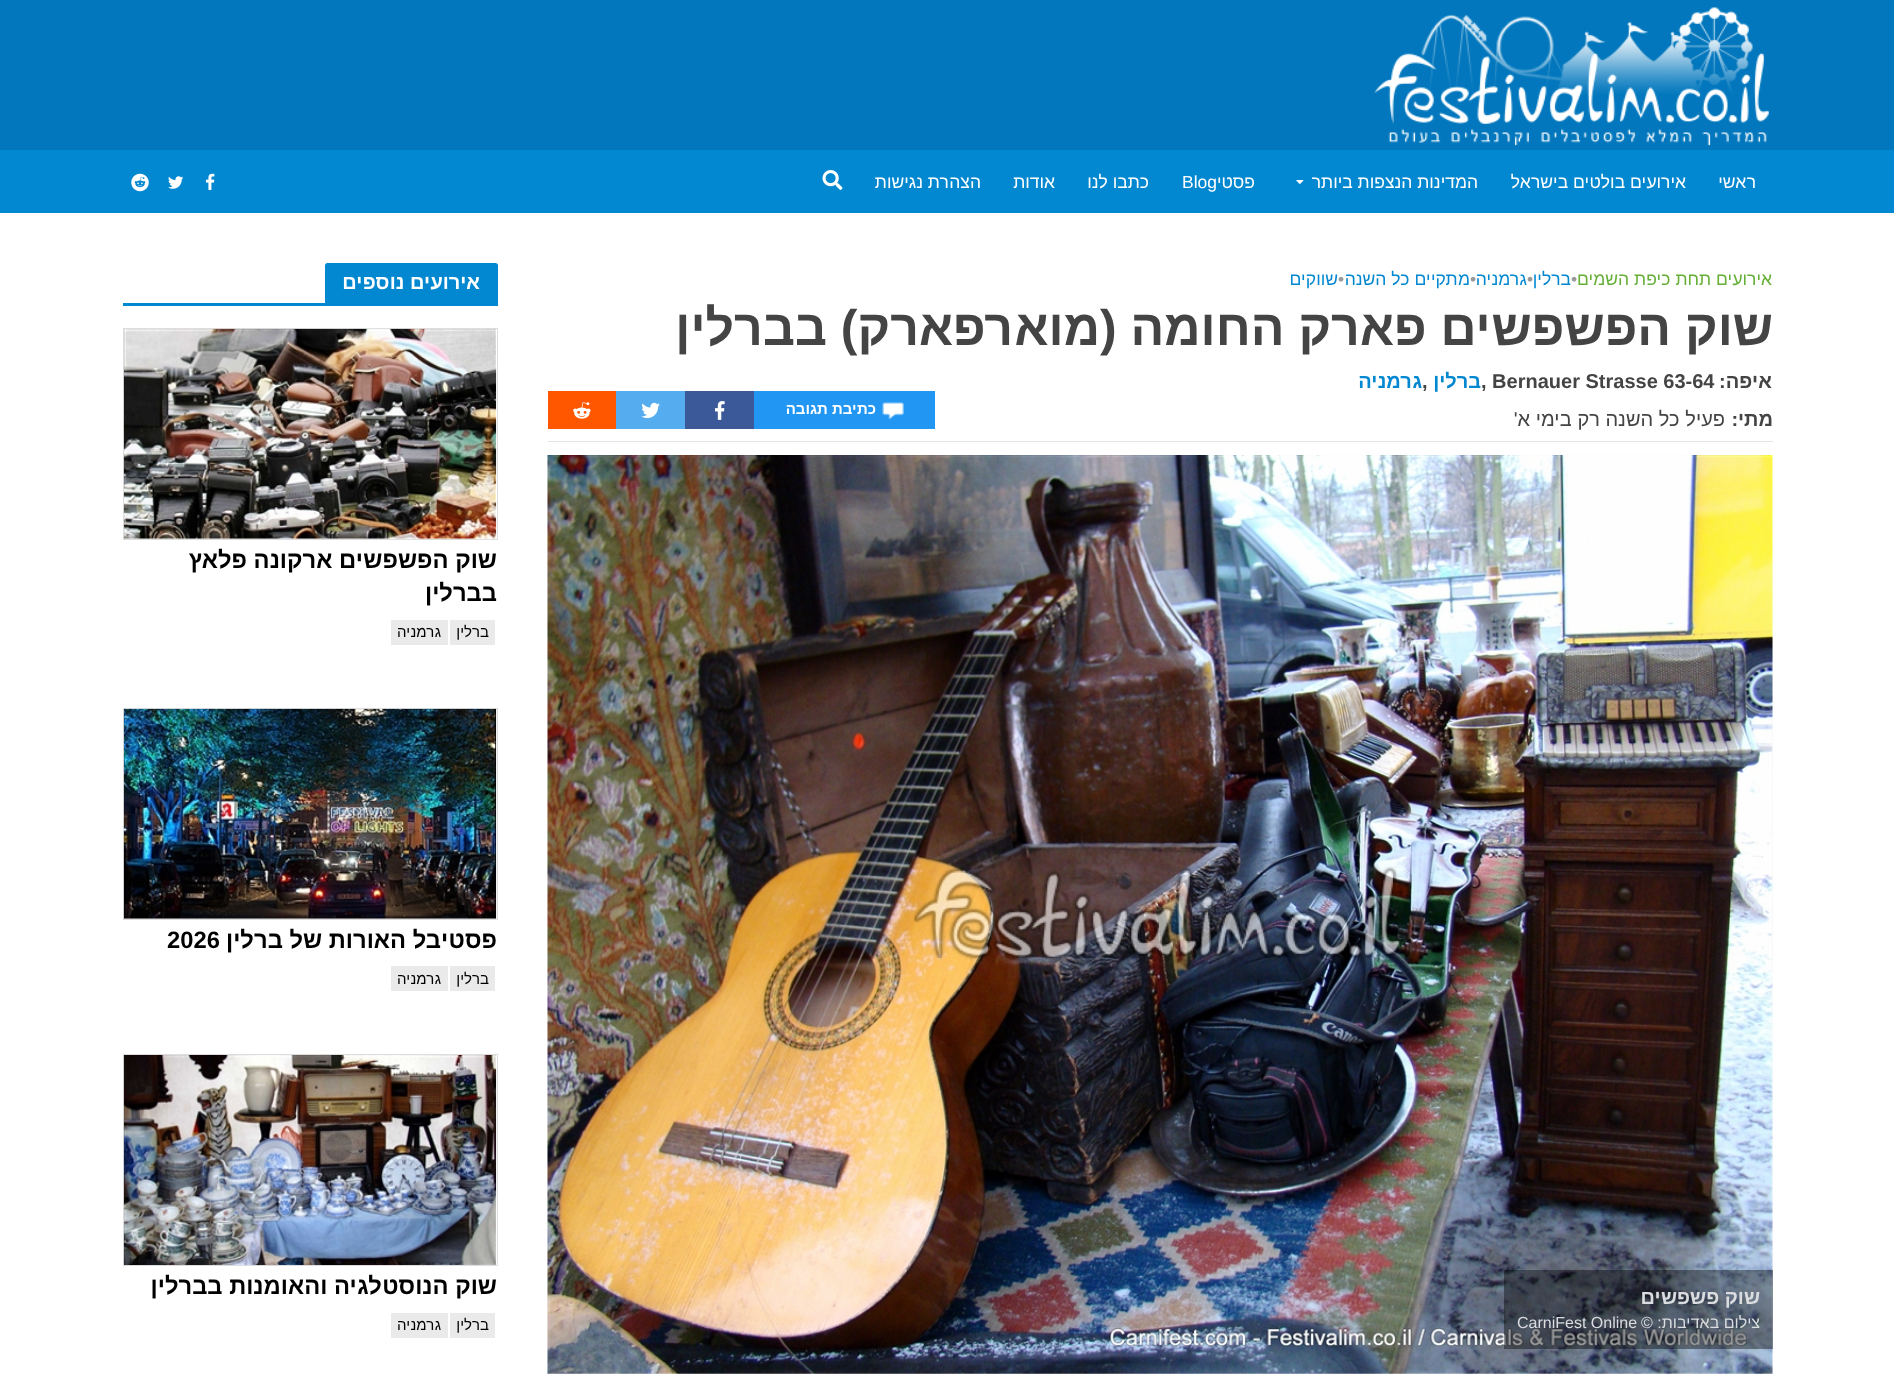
<svg xmlns="http://www.w3.org/2000/svg" width="1894" height="1395" viewBox="0 0 1894 1395">
  <rect width="100%" height="100%" fill="rgb(255,255,255)"/>
  <rect x="0" y="0" width="1894" height="150" fill="rgb(2,119,189)"/>
  <image x="1374" y="7" width="395" height="139" href="pic1.png"/>
  <rect x="0" y="150" width="1894" height="63" fill="rgb(2,136,209)"/>
  <g font-family="Arimo" font-size="17.5" direction="rtl" fill="rgb(255,255,255)">
    <text x="1756" y="188">ראשי</text>
    <text x="1686" y="188">אירועים בולטים בישראל</text>
    <text x="1478" y="188">המדינות הנצפות ביותר</text>
  </g>
  <image x="1296" y="180" width="8" height="4" href="pic2.png"/>
  <text x="1255" y="188" font-family="Arimo" font-size="17.5" direction="rtl" fill="rgb(255,255,255)">פסטי</text>
  <text x="1182" y="188" font-family="Arimo" font-size="17.5" fill="rgb(255,255,255)">Blog</text>
  <g font-family="Arimo" font-size="17.5" direction="rtl" fill="rgb(255,255,255)">
    <text x="1149" y="188">כתבו לנו</text>
    <text x="1055" y="188">אודות</text>
    <text x="981" y="188">הצהרת נגישות</text>
  </g>
  <image x="822" y="170" width="21" height="20" href="pic3.png"/>
  <image x="205" y="173" width="10" height="17" href="pic4.png"/>
  <image x="168" y="176" width="16" height="13" href="pic5.png"/>
  <image x="131" y="173" width="18" height="19" href="pic6.png"/>
  <text x="1772" y="285" font-family="Arimo" font-size="17.5" direction="rtl" fill="rgb(101,175,54)">אירועים תחת כיפת השמים</text>
  <text x="1571" y="285" font-family="Arimo" font-size="17.5" fill="rgb(153,153,153)">•</text>
  <text x="1571" y="285" font-family="Arimo" font-size="17.5" direction="rtl" fill="rgb(2,136,209)">ברלין</text>
  <text x="1527" y="285" font-family="Arimo" font-size="17.5" fill="rgb(153,153,153)">•</text>
  <text x="1527" y="285" font-family="Arimo" font-size="17.5" direction="rtl" fill="rgb(2,136,209)">גרמניה</text>
  <text x="1470" y="285" font-family="Arimo" font-size="17.5" fill="rgb(153,153,153)">•</text>
  <text x="1470" y="285" font-family="Arimo" font-size="17.5" direction="rtl" fill="rgb(2,136,209)">מתקיים כל השנה</text>
  <text x="1338" y="285" font-family="Arimo" font-size="17.5" fill="rgb(153,153,153)">•</text>
  <text x="1338" y="285" font-family="Arimo" font-size="17.5" direction="rtl" fill="rgb(2,136,209)">שווקים</text>
  <text x="1773" y="345" font-family="Arimo" font-size="50" font-weight="bold" direction="rtl" fill="rgb(68,68,68)">שוק הפשפשים פארק החומה (מוארפארק) בברלין</text>
  <rect x="548" y="441" width="1225" height="1" fill="rgb(228,228,228)"/>
  <text x="1772" y="388" font-family="Arimo" font-size="20" font-weight="bold" direction="rtl" fill="rgb(68,68,68)">איפה:</text>
  <text x="1481" y="388" font-family="Arimo" font-size="20" font-weight="bold" fill="rgb(68,68,68)">, Bernauer Strasse 63-64</text>
  <text x="1481" y="388" font-family="Arimo" font-size="20" font-weight="bold" direction="rtl" fill="rgb(2,136,209)">ברלין</text>
  <text x="1422" y="388" font-family="Arimo" font-size="20" font-weight="bold" fill="rgb(68,68,68)">,</text>
  <text x="1422" y="388" font-family="Arimo" font-size="20" font-weight="bold" direction="rtl" fill="rgb(2,136,209)">גרמניה</text>
  <text x="1773" y="426" font-family="Arimo" font-size="20" font-weight="bold" direction="rtl" fill="rgb(68,68,68)">מתי:</text>
  <text x="1725" y="426" font-family="Arimo" font-size="20" direction="rtl" fill="rgb(68,68,68)">פעיל כל השנה רק בימי א'</text>
  <rect x="754" y="391" width="181" height="38" fill="rgb(33,150,243)"/>
  <image x="882" y="402" width="22" height="18" href="pic7.png"/>
  <text x="876" y="414" font-family="Arimo" font-size="15" font-weight="bold" direction="rtl" fill="rgb(255,255,255)">כתיבת תגובה</text>
  <rect x="685" y="391" width="69" height="38" fill="rgb(59,89,153)"/>
  <image x="715" y="401" width="10" height="19" href="pic8.png"/>
  <rect x="616" y="391" width="69" height="38" fill="rgb(85,172,238)"/>
  <image x="641" y="402" width="19" height="17" href="pic9.png"/>
  <rect x="548" y="391" width="68" height="38" fill="rgb(255,87,0)"/>
  <image x="573" y="402" width="18" height="17" href="pic10.png"/>
  <rect x="548" y="455" width="1225" height="919" fill="rgb(243,243,243)"/>
  <image x="547" y="455" width="1226" height="919" href="pic11.png"/>
  <rect x="1504" y="1270" width="269" height="79" fill="rgba(0,0,0,0.4)"/>
  <text x="1760" y="1304" font-family="Arimo" font-size="20" font-weight="bold" direction="rtl" fill="rgb(218,220,223)">שוק פשפשים</text>
  <text x="1760" y="1328" font-family="Arimo" font-size="16" direction="rtl" fill="rgb(218,220,223)">צילום באדיבות: ©</text>
  <text x="1517" y="1328" font-family="Arimo" font-size="16" fill="rgb(218,220,223)">CarniFest Online</text>
  <path d="M327.5 263H495.5C497 263 498 264 498 265.5V303H325V265.5C325 264 326 263 327.5 263Z" fill="rgb(2,136,209)"/>
  <text x="480" y="289" font-family="Arimo" font-size="20" font-weight="bold" direction="rtl" fill="rgb(255,255,255)">אירועים נוספים</text>
  <rect x="123" y="303" width="375" height="3" fill="rgb(2,136,209)"/>
  <rect x="123.5" y="328.5" width="374" height="211" fill="none" stroke="rgb(221,221,221)"/>
  <image x="123" y="328" width="374" height="211" href="pic12.png"/>
  <g font-family="Arimo" font-size="23.75" font-weight="bold" direction="rtl" fill="rgb(0,0,0)">
    <text>
      <tspan x="497" y="568">שוק הפשפשים ארקונה פלאץ</tspan>
      <tspan x="497" y="601">בברלין</tspan>
    </text>
  </g>
  <rect x="450" y="620" width="45" height="25" fill="rgb(234,234,234)"/>
  <text x="489" y="637" font-family="Arimo" font-size="15" direction="rtl" fill="rgb(0,0,0)">ברלין</text>
  <rect x="391" y="620" width="57" height="25" fill="rgb(234,234,234)"/>
  <text x="441" y="637" font-family="Arimo" font-size="15" direction="rtl" fill="rgb(0,0,0)">גרמניה</text>
  <rect x="123.5" y="708.5" width="374" height="211" fill="none" stroke="rgb(221,221,221)"/>
  <image x="123" y="708" width="374" height="211" href="pic13.png"/>
  <text x="497" y="948" font-family="Arimo" font-size="23.75" font-weight="bold" direction="rtl" fill="rgb(0,0,0)">פסטיבל האורות של ברלין</text>
  <text x="167" y="948" font-family="Arimo" font-size="23.75" font-weight="bold" fill="rgb(0,0,0)">2026</text>
  <rect x="450" y="966" width="45" height="25" fill="rgb(234,234,234)"/>
  <text x="489" y="984" font-family="Arimo" font-size="15" direction="rtl" fill="rgb(0,0,0)">ברלין</text>
  <rect x="391" y="966" width="57" height="25" fill="rgb(234,234,234)"/>
  <text x="441" y="984" font-family="Arimo" font-size="15" direction="rtl" fill="rgb(0,0,0)">גרמניה</text>
  <rect x="123.5" y="1054.5" width="374" height="211" fill="none" stroke="rgb(221,221,221)"/>
  <image x="123" y="1055" width="374" height="210" href="pic14.png"/>
  <text x="497" y="1294" font-family="Arimo" font-size="23.75" font-weight="bold" direction="rtl" fill="rgb(0,0,0)">שוק הנוסטלגיה והאומנות בברלין</text>
  <rect x="450" y="1313" width="45" height="25" fill="rgb(234,234,234)"/>
  <text x="489" y="1330" font-family="Arimo" font-size="15" direction="rtl" fill="rgb(0,0,0)">ברלין</text>
  <rect x="391" y="1313" width="57" height="25" fill="rgb(234,234,234)"/>
  <text x="441" y="1330" font-family="Arimo" font-size="15" direction="rtl" fill="rgb(0,0,0)">גרמניה</text>
</svg>
